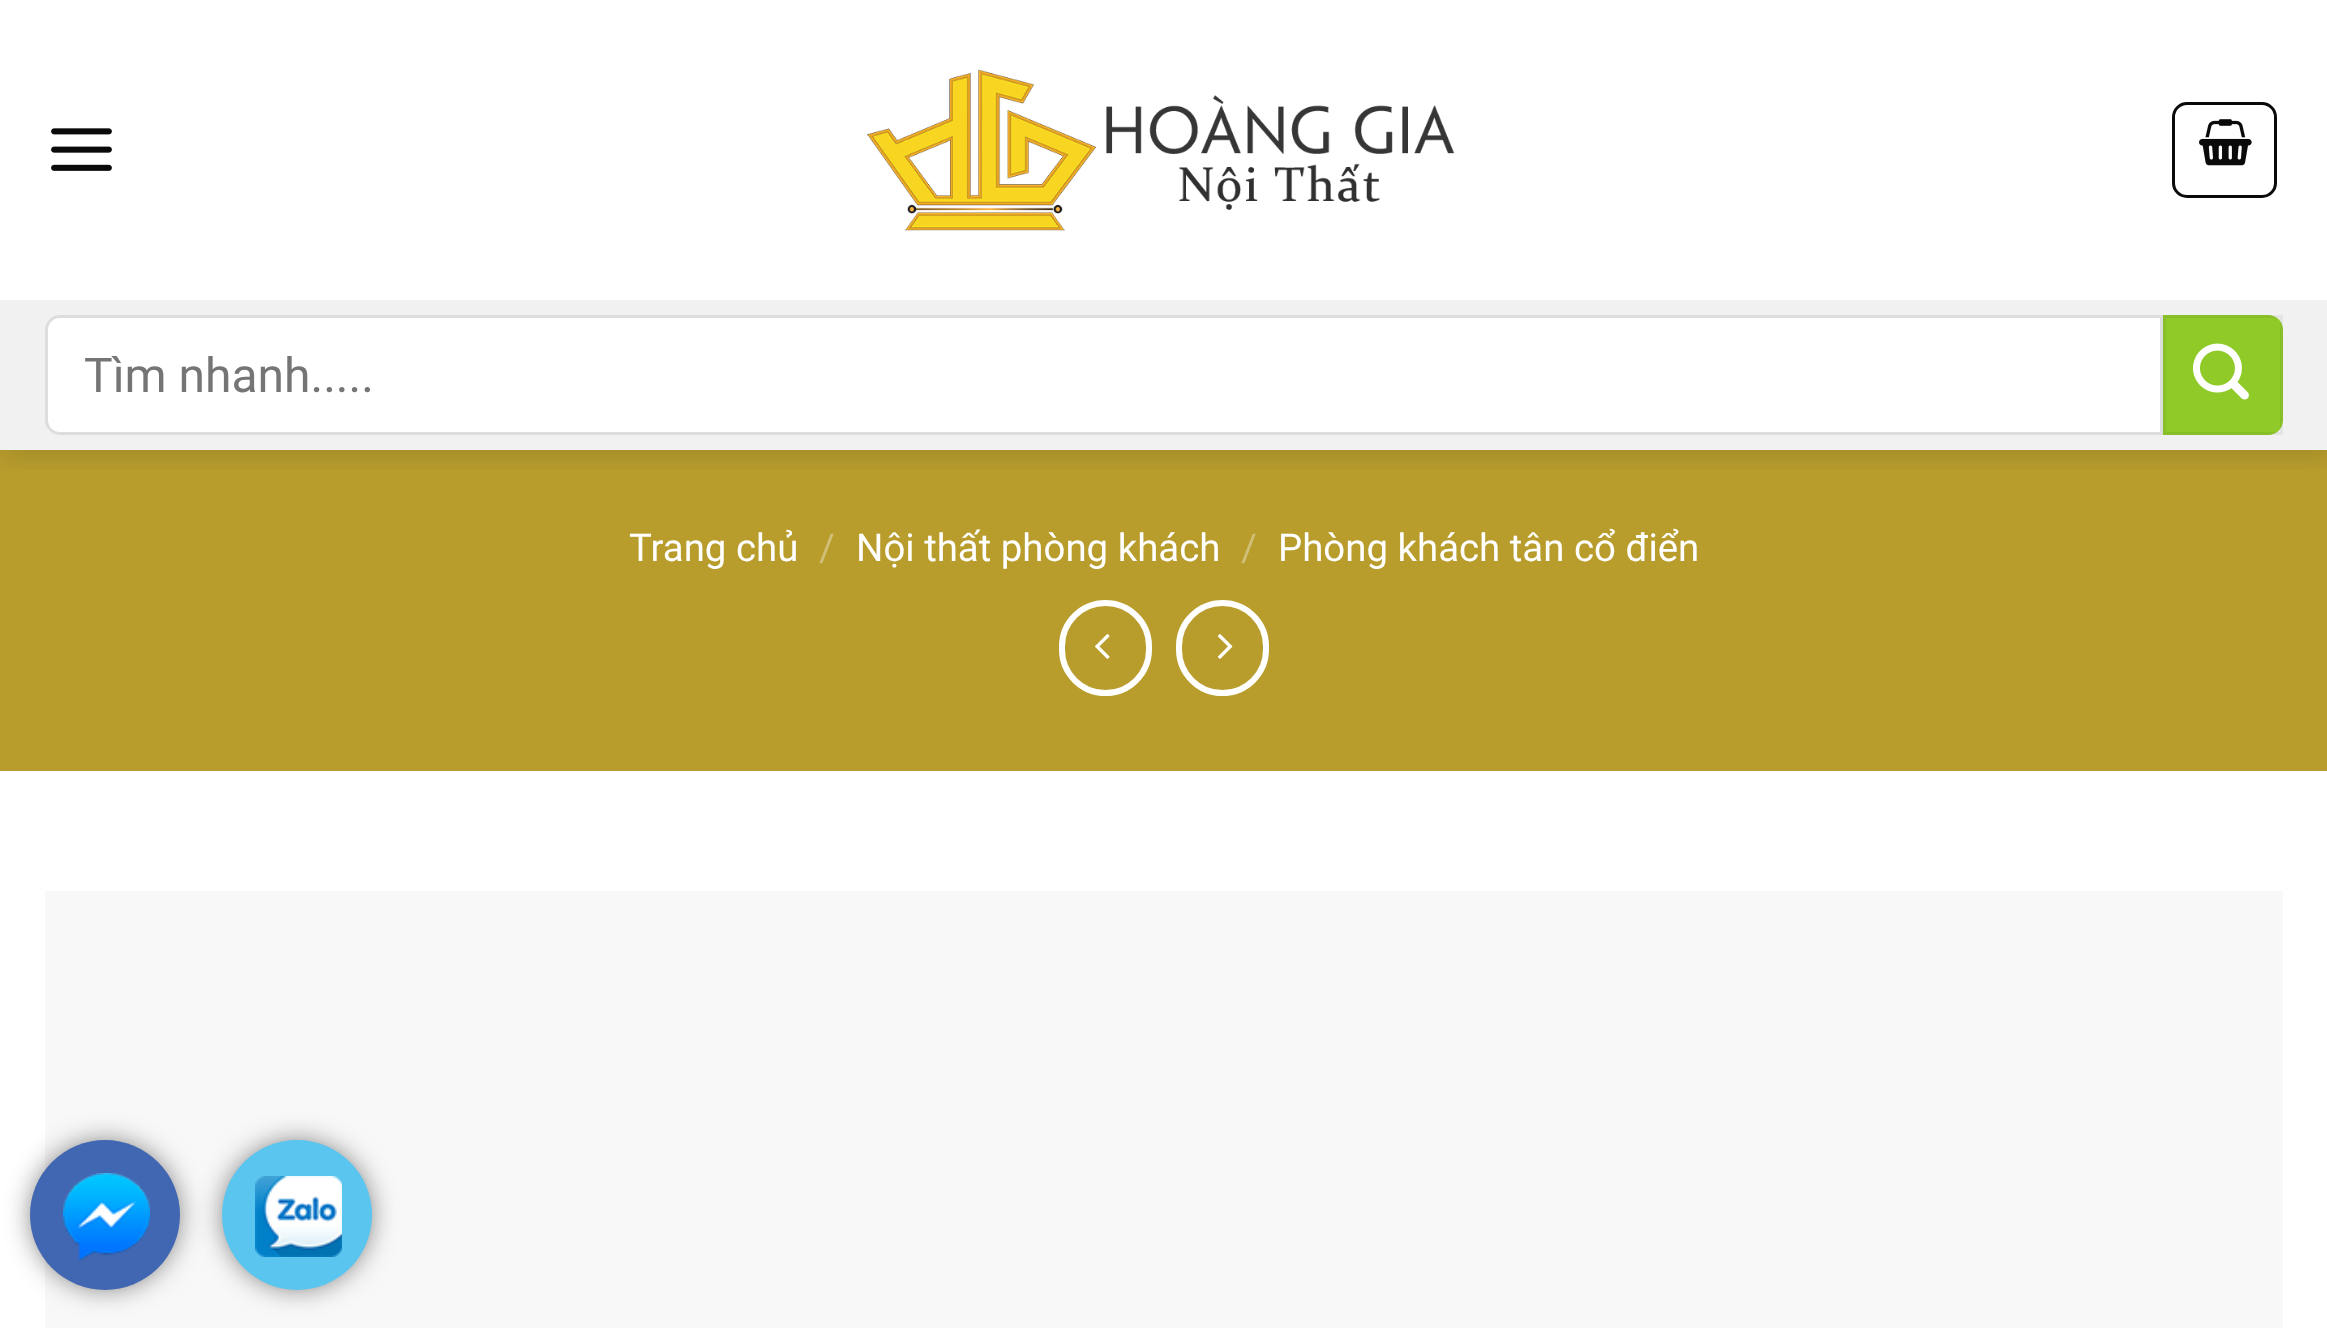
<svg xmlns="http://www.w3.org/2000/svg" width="2327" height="1328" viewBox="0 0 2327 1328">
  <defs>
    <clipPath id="clip1"><rect x="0" y="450" width="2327" height="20"/></clipPath>
  </defs>
  <rect width="100%" height="100%" fill="rgb(255,255,255)"/>
  <rect x="0" y="450" width="2327" height="321" fill="rgb(184,157,45)"/>
  <g clip-path="url(#clip1)">
    <rect x="3" y="3" width="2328" height="450" fill="rgba(0,0,0,0.15)" filter="blur(15px)"/>
  </g>
  <image x="51" y="128" width="61" height="43" href="pic1.png"/>
  <image x="867" y="69" width="588" height="162" href="pic2.png"/>
  <rect x="2173.5" y="103.5" width="102" height="93" rx="13.5" fill="none" stroke="rgb(10,10,10)" stroke-width="3"/>
  <image x="2199" y="119" width="53" height="47" href="pic3.png"/>
  <rect x="0" y="300" width="2327" height="150" fill="rgb(241,241,241)"/>
  <path d="M60 316.5H2161.5V433.5H60C52.5 433.5 46.5 427.5 46.5 420V330C46.5 322.5 52.5 316.5 60 316.5Z" fill="rgb(255,255,255)" stroke="rgb(221,221,221)" stroke-width="3"/>
  <text x="84" y="392" font-family="Roboto" font-size="48" fill="rgb(117,117,117)">Tìm nhanh.....</text>
  <path d="M2163 315H2268C2276.5 315 2283 321.5 2283 330V420C2283 428.5 2276.5 435 2268 435H2163Z" fill="rgb(144,202,41)"/>
  <rect x="2164.5" y="316.5" width="117" height="117" fill="none" stroke="rgba(0,0,0,0.05)" stroke-width="3"/>
  <image x="2193" y="343" width="56" height="57" href="pic4.png"/>
  <text x="629" y="561" font-family="Roboto" font-size="38.4" fill="rgb(255,255,255)">Trang chủ</text>
  <text x="819" y="561" font-family="Roboto" font-size="38.4" fill="rgb(209,191,119)">/</text>
  <text x="856" y="561" font-family="Roboto" font-size="38.4" fill="rgb(255,255,255)">Nội thất phòng khách</text>
  <text x="1241" y="561" font-family="Roboto" font-size="38.4" fill="rgb(209,191,119)">/</text>
  <text x="1278" y="561" font-family="Roboto" font-size="38.4" fill="rgb(255,255,255)">Phòng khách tân cổ điển</text>
  <rect x="1062" y="603" width="87" height="90" rx="43.5" fill="none" stroke="rgb(255,255,255)" stroke-width="6"/>
  <image x="1095" y="634" width="15" height="25" href="pic5.png"/>
  <rect x="1179" y="603" width="87" height="90" rx="43.5" fill="none" stroke="rgb(255,255,255)" stroke-width="6"/>
  <image x="1217" y="634" width="16" height="25" href="pic6.png"/>
  <rect x="45" y="891" width="2238" height="437" fill="rgb(248,248,248)"/>
  <rect x="36" y="1146" width="138" height="138" rx="69" fill="rgba(0,0,0,0.7)" filter="blur(15px)"/>
  <circle cx="105" cy="1215" r="75" fill="rgb(66,103,178)"/>
  <image x="63" y="1173" width="87" height="87" href="pic7.png"/>
  <rect x="228" y="1146" width="138" height="138" rx="69" fill="rgba(0,0,0,0.7)" filter="blur(15px)"/>
  <circle cx="297" cy="1215" r="75" fill="rgb(90,197,239)"/>
  <image x="255" y="1176" width="87" height="81" href="pic8.png"/>
</svg>
